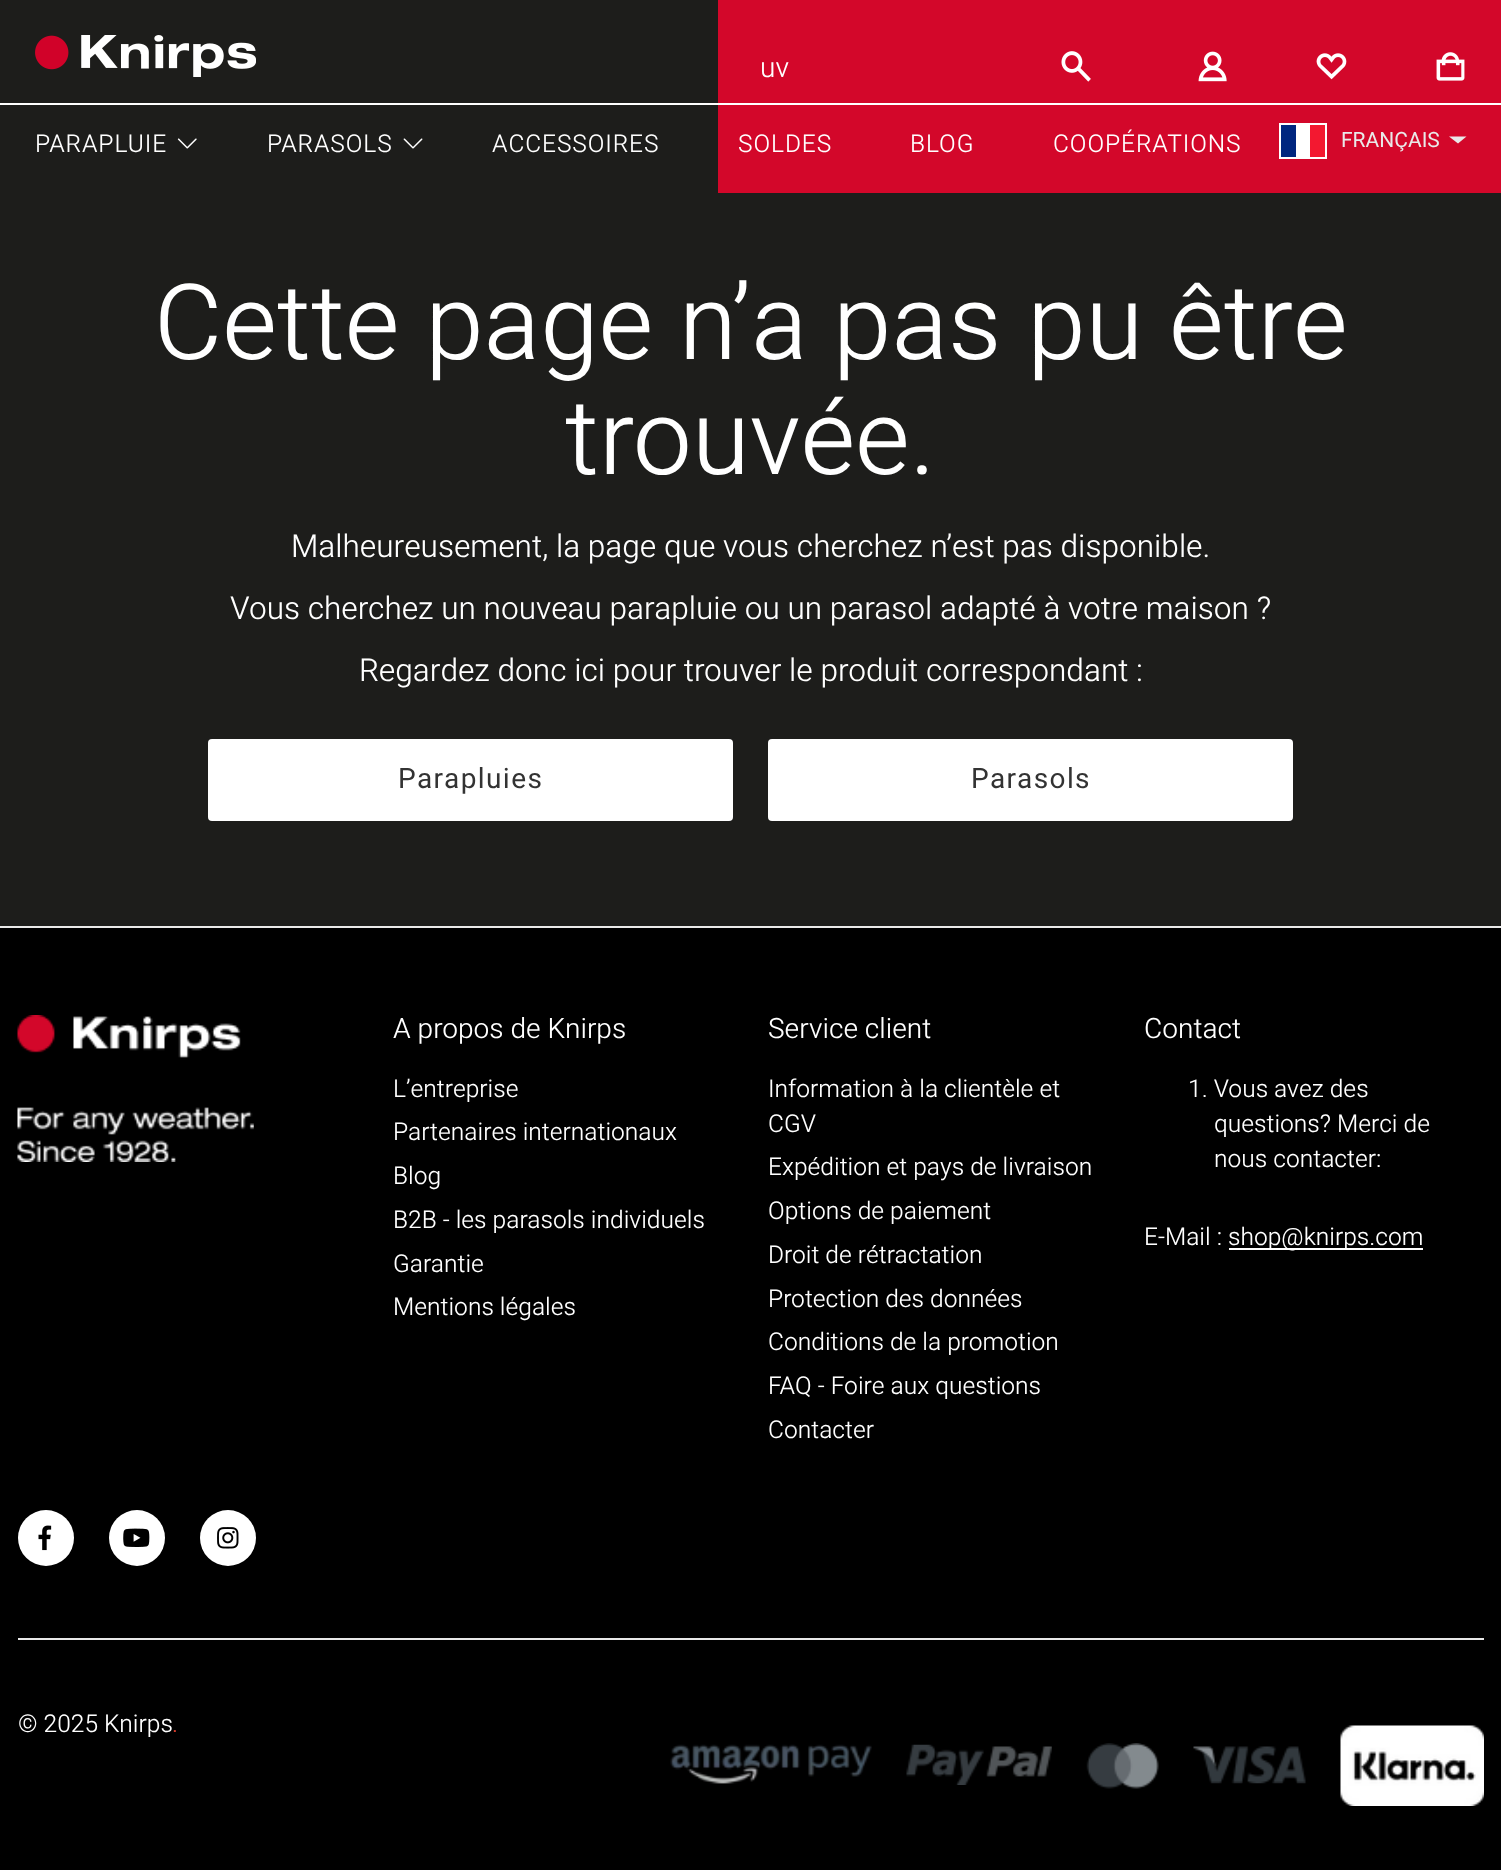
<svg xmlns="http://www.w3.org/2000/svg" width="1501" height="1870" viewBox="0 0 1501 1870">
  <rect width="100%" height="100%" fill="rgb(29,29,27)"/>
  <image x="35" y="35" width="221" height="42" href="pic1.png"/>
  <rect x="718" y="0" width="783" height="193" fill="rgb(211,7,42)"/>
  <image x="1436" y="52" width="29" height="29" href="pic2.png"/>
  <text x="760" y="77" font-family="Heebo" font-size="28" font-weight="300" fill="rgb(255,255,255)">uv</text>
  <image x="1061" y="51" width="30" height="31" href="pic3.png"/>
  <image x="1198" y="51" width="29" height="31" href="pic4.png"/>
  <image x="1316" y="53" width="31" height="27" href="pic5.png"/>
  <rect x="1296" y="125" width="14" height="32" fill="rgb(255,255,255)"/>
  <rect x="1281" y="125" width="15" height="32" fill="rgb(0,38,127)"/>
  <rect x="1310" y="125" width="15" height="32" fill="rgb(243,24,48)"/>
  <rect x="1280" y="124" width="46" height="34" fill="none" stroke="rgb(255,255,255)" stroke-width="2"/>
  <text x="1341" y="147" font-family="Heebo" font-size="21" fill="rgb(233,233,233)">FRANÇAIS</text>
  <path d="M1449 136.5H1466.5L1458 143.5Z" fill="rgb(233,233,233)"/>
  <rect x="0" y="103" width="1501" height="2" fill="rgb(255,255,255)"/>
  <text x="35" y="152" font-family="Heebo" font-size="24.5" font-weight="300" letter-spacing="0.9" fill="rgb(255,255,255)">PARAPLUIE</text>
  <image x="177" y="138" width="20" height="11" href="pic6.png"/>
  <text x="267" y="152" font-family="Heebo" font-size="24.5" font-weight="300" letter-spacing="0.9" fill="rgb(255,255,255)">PARASOLS</text>
  <image x="403" y="138" width="20" height="11" href="pic7.png"/>
  <g font-family="Heebo" font-size="24.5" font-weight="300" letter-spacing="0.9" fill="rgb(255,255,255)">
    <text x="492" y="152">ACCESSOIRES</text>
    <text x="738" y="152">SOLDES</text>
    <text x="910" y="152">BLOG</text>
    <text x="1053" y="152">COOPÉRATIONS</text>
  </g>
  <g font-family="Heebo" font-size="105" font-weight="300" fill="rgb(255,255,255)">
    <text x="154" y="359">Cette page n’a pas pu être</text>
    <text x="565" y="474">trouvée.</text>
  </g>
  <g font-family="Heebo" font-size="31.5" font-weight="300" fill="rgb(255,255,255)">
    <text x="291" y="557">Malheureusement, la page que vous cherchez n’est pas disponible.</text>
    <text x="230" y="619">Vous cherchez un nouveau parapluie ou un parasol adapté à votre maison ?</text>
    <text x="359" y="681">Regardez donc ici pour trouver le produit correspondant :</text>
  </g>
  <rect x="208" y="739" width="525" height="82" rx="4" fill="rgb(255,255,255)"/>
  <text x="398" y="788" font-family="Heebo" font-size="28" letter-spacing="1.4" fill="rgb(51,51,51)">Parapluies</text>
  <rect x="768" y="739" width="525" height="82" rx="4" fill="rgb(255,255,255)"/>
  <text x="971" y="788" font-family="Heebo" font-size="28" letter-spacing="1.4" fill="rgb(51,51,51)">Parasols</text>
  <rect x="0" y="928" width="1501" height="942" fill="rgb(0,0,0)"/>
  <rect x="0" y="926" width="1501" height="2" fill="rgb(233,233,233)"/>
  <image x="17" y="1015" width="237" height="147" href="pic8.png"/>
  <text x="393" y="1038" font-family="Heebo" font-size="28" font-weight="300" fill="rgb(255,255,255)">A propos de Knirps</text>
  <g font-family="Heebo" font-size="24.5" font-weight="300" fill="rgb(255,255,255)">
    <text>
      <tspan x="393" y="1097">L’entreprise</tspan>
      <tspan x="393" y="1140">Partenaires internationaux</tspan>
      <tspan x="393" y="1184">Blog</tspan>
      <tspan x="393" y="1228">B2B - les parasols individuels</tspan>
      <tspan x="393" y="1272">Garantie</tspan>
      <tspan x="393" y="1315">Mentions légales</tspan>
    </text>
  </g>
  <text x="768" y="1038" font-family="Heebo" font-size="28" font-weight="300" fill="rgb(255,255,255)">Service client</text>
  <g font-family="Heebo" font-size="24.5" font-weight="300" fill="rgb(255,255,255)">
    <text>
      <tspan x="768" y="1097">Information à la clientèle et</tspan>
      <tspan x="768" y="1132">CGV</tspan>
      <tspan x="768" y="1175">Expédition et pays de livraison</tspan>
      <tspan x="768" y="1219">Options de paiement</tspan>
      <tspan x="768" y="1263">Droit de rétractation</tspan>
      <tspan x="768" y="1307">Protection des données</tspan>
      <tspan x="768" y="1350">Conditions de la promotion</tspan>
      <tspan x="768" y="1394">FAQ - Foire aux questions</tspan>
      <tspan x="768" y="1438">Contacter</tspan>
    </text>
  </g>
  <text x="1144" y="1038" font-family="Heebo" font-size="28" font-weight="300" fill="rgb(255,255,255)">Contact</text>
  <g font-family="Heebo" font-size="24.5" font-weight="300" fill="rgb(255,255,255)">
    <text x="1188" y="1097">1. Vous avez des</text>
    <text>
      <tspan x="1214" y="1132">questions? Merci de</tspan>
      <tspan x="1214" y="1167">nous contacter:</tspan>
    </text>
    <text x="1144" y="1245">E-Mail :</text>
  </g>
  <rect x="1229" y="1248" width="194" height="2" fill="rgb(255,255,255)"/>
  <text x="1228" y="1245" font-family="Heebo" font-size="24.5" font-weight="300" fill="rgb(255,255,255)">shop@knirps.com</text>
  <circle cx="46" cy="1538" r="28" fill="rgb(255,255,255)"/>
  <image x="38" y="1525" width="14" height="26" href="pic9.png"/>
  <circle cx="137" cy="1538" r="28" fill="rgb(255,255,255)"/>
  <image x="123" y="1528" width="27" height="19" href="pic10.png"/>
  <circle cx="228" cy="1538" r="28" fill="rgb(255,255,255)"/>
  <image x="217" y="1527" width="22" height="22" href="pic11.png"/>
  <rect x="18" y="1638" width="1466" height="2" fill="rgb(233,233,233)"/>
  <text x="18" y="1732" font-family="Heebo" font-size="24.5" font-weight="300" fill="rgb(255,255,255)">© 2025 Knirps</text>
  <text x="172" y="1732" font-family="Heebo" font-size="24.5" font-weight="300" fill="rgb(224,62,45)">.</text>
  <image x="670" y="1744" width="202" height="40" href="pic12.png"/>
  <image x="906" y="1744" width="146" height="41" href="pic13.png"/>
  <image x="1086" y="1743" width="73" height="46" href="pic14.png"/>
  <image x="1193" y="1746" width="113" height="38" href="pic15.png"/>
  <image x="1340" y="1725" width="144" height="81" href="pic16.png"/>
</svg>
